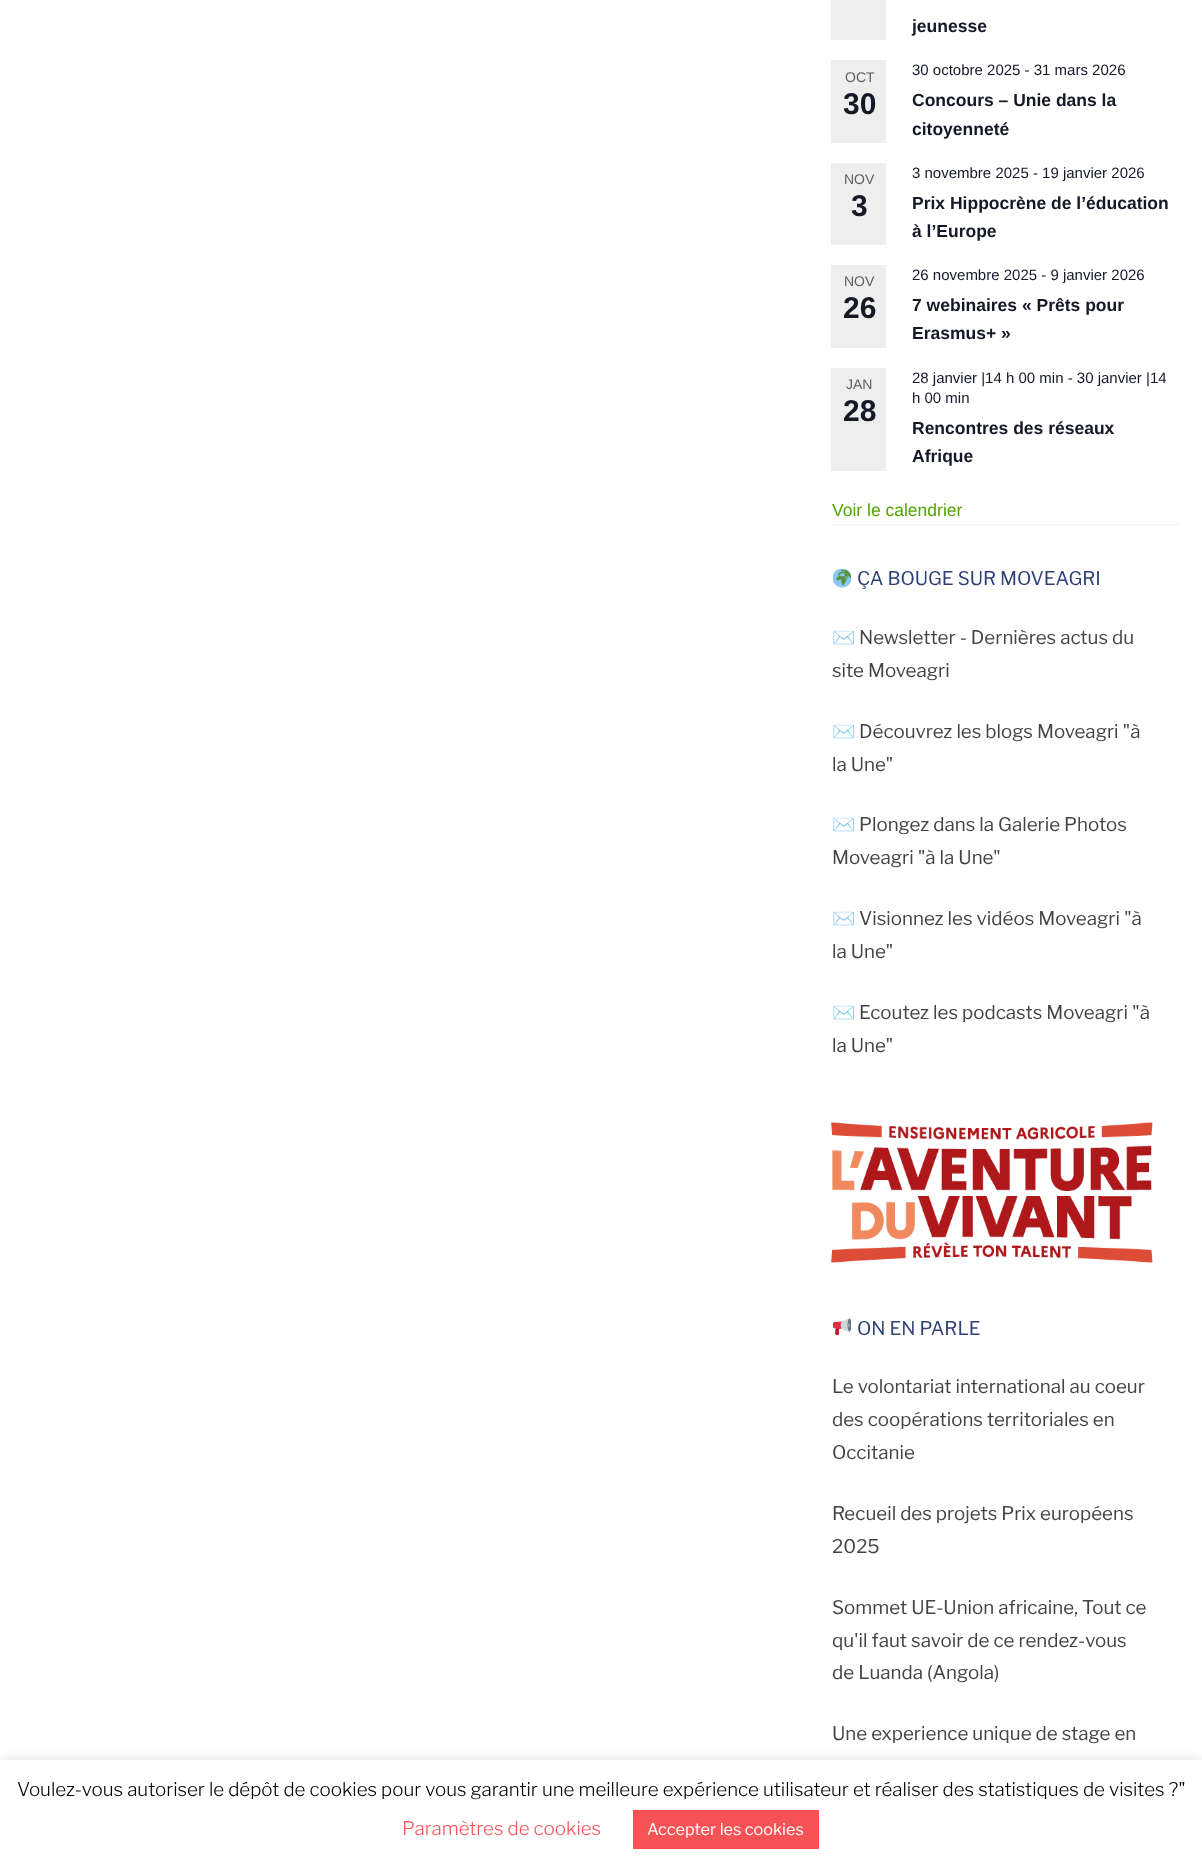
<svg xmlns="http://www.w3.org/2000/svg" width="1202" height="1870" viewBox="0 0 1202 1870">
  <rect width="100%" height="100%" fill="rgb(255,255,255)"/>
  <rect x="831" y="524" width="347" height="1" fill="rgb(238,238,238)"/>
  <rect x="831" y="0" width="55" height="40" fill="rgb(238,238,238)"/>
  <text x="912" y="32" font-family="Liberation Sans" font-size="17.5" font-weight="bold" fill="rgb(20,24,39)">jeunesse</text>
  <rect x="831" y="60" width="55" height="83" fill="rgb(238,238,238)"/>
  <text x="845" y="82" font-family="Liberation Sans" font-size="14" fill="rgb(93,93,93)">OCT</text>
  <text x="843" y="114" font-family="Liberation Sans" font-size="30" font-weight="bold" fill="rgb(20,24,39)">30</text>
  <text x="912" y="75" font-family="Liberation Sans" font-size="15" fill="rgb(20,24,39)">30 octobre 2025 - 31 mars 2026</text>
  <g font-family="Liberation Sans" font-size="17.5" font-weight="bold" fill="rgb(20,24,39)">
    <text>
      <tspan x="912" y="106">Concours – Unie dans la</tspan>
      <tspan x="912" y="135">citoyenneté</tspan>
    </text>
  </g>
  <rect x="831" y="163" width="55" height="82" fill="rgb(238,238,238)"/>
  <text x="844" y="184" font-family="Liberation Sans" font-size="14" fill="rgb(93,93,93)">NOV</text>
  <text x="851" y="216" font-family="Liberation Sans" font-size="30" font-weight="bold" fill="rgb(20,24,39)">3</text>
  <text x="912" y="178" font-family="Liberation Sans" font-size="15" fill="rgb(20,24,39)">3 novembre 2025 - 19 janvier 2026</text>
  <g font-family="Liberation Sans" font-size="17.5" font-weight="bold" fill="rgb(20,24,39)">
    <text>
      <tspan x="912" y="209">Prix Hippocrène de l’éducation</tspan>
      <tspan x="912" y="237">à l’Europe</tspan>
    </text>
  </g>
  <rect x="831" y="265" width="55" height="83" fill="rgb(238,238,238)"/>
  <text x="844" y="286" font-family="Liberation Sans" font-size="14" fill="rgb(93,93,93)">NOV</text>
  <text x="843" y="318" font-family="Liberation Sans" font-size="30" font-weight="bold" fill="rgb(20,24,39)">26</text>
  <text x="912" y="280" font-family="Liberation Sans" font-size="15" fill="rgb(20,24,39)">26 novembre 2025 - 9 janvier 2026</text>
  <g font-family="Liberation Sans" font-size="17.5" font-weight="bold" fill="rgb(20,24,39)">
    <text>
      <tspan x="912" y="311">7 webinaires « Prêts pour</tspan>
      <tspan x="912" y="339">Erasmus+ »</tspan>
    </text>
  </g>
  <rect x="831" y="368" width="55" height="103" fill="rgb(238,238,238)"/>
  <text x="846" y="389" font-family="Liberation Sans" font-size="14" fill="rgb(93,93,93)">JAN</text>
  <text x="843" y="421" font-family="Liberation Sans" font-size="30" font-weight="bold" fill="rgb(20,24,39)">28</text>
  <g font-family="Liberation Sans" font-size="15" fill="rgb(20,24,39)">
    <text>
      <tspan x="912" y="383">28 janvier |14 h 00 min - 30 janvier |14</tspan>
      <tspan x="912" y="403">h 00 min</tspan>
    </text>
  </g>
  <g font-family="Liberation Sans" font-size="17.5" font-weight="bold" fill="rgb(20,24,39)">
    <text>
      <tspan x="912" y="434">Rencontres des réseaux</tspan>
      <tspan x="912" y="462">Afrique</tspan>
    </text>
  </g>
  <text x="832" y="516" font-family="Liberation Sans" font-size="17.5" fill="rgb(83,165,1)">Voir le calendrier</text>
  <image x="833" y="569" width="18" height="19" href="pic1.png"/>
  <text x="857" y="585" font-family="Libre Franklin" font-size="18.75" fill="rgb(47,64,119)">ÇA BOUGE SUR MOVEAGRI</text>
  <text x="832" y="644" font-family="Noto Color Emoji" font-size="18.75" fill="rgb(68,68,68)">✉️</text>
  <g font-family="Libre Franklin" font-size="18.75" fill="rgb(68,68,68)">
    <text x="859" y="644">Newsletter - Dernières actus du</text>
    <text x="832" y="677">site Moveagri</text>
  </g>
  <text x="832" y="738" font-family="Noto Color Emoji" font-size="18.75" fill="rgb(68,68,68)">✉️</text>
  <g font-family="Libre Franklin" font-size="18.75" fill="rgb(68,68,68)">
    <text x="859" y="738">Découvrez les blogs Moveagri "à</text>
    <text x="832" y="771">la Une"</text>
  </g>
  <text x="832" y="831" font-family="Noto Color Emoji" font-size="18.75" fill="rgb(68,68,68)">✉️</text>
  <g font-family="Libre Franklin" font-size="18.75" fill="rgb(68,68,68)">
    <text x="859" y="831">Plongez dans la Galerie Photos</text>
    <text x="832" y="864">Moveagri "à la Une"</text>
  </g>
  <text x="832" y="925" font-family="Noto Color Emoji" font-size="18.75" fill="rgb(68,68,68)">✉️</text>
  <g font-family="Libre Franklin" font-size="18.75" fill="rgb(68,68,68)">
    <text x="859" y="925">Visionnez les vidéos Moveagri "à</text>
    <text x="832" y="958">la Une"</text>
  </g>
  <text x="832" y="1019" font-family="Noto Color Emoji" font-size="18.75" fill="rgb(68,68,68)">✉️</text>
  <g font-family="Libre Franklin" font-size="18.75" fill="rgb(68,68,68)">
    <text x="859" y="1019">Ecoutez les podcasts Moveagri "à</text>
    <text x="832" y="1052">la Une"</text>
  </g>
  <image x="831" y="1122" width="322" height="141" href="pic2.png"/>
  <image x="833" y="1318" width="18" height="18" href="pic3.png"/>
  <text x="857" y="1335" font-family="Libre Franklin" font-size="18.75" fill="rgb(47,64,119)">ON EN PARLE</text>
  <g font-family="Libre Franklin" font-size="18.75" fill="rgb(68,68,68)">
    <text>
      <tspan x="832" y="1393">Le volontariat international au coeur</tspan>
      <tspan x="832" y="1426">des coopérations territoriales en</tspan>
      <tspan x="832" y="1459">Occitanie</tspan>
    </text>
    <text>
      <tspan x="832" y="1520">Recueil des projets Prix européens</tspan>
      <tspan x="832" y="1553">2025</tspan>
    </text>
    <text>
      <tspan x="832" y="1614">Sommet UE-Union africaine, Tout ce</tspan>
      <tspan x="832" y="1647">qu'il faut savoir de ce rendez-vous</tspan>
      <tspan x="832" y="1679">de Luanda (Angola)</tspan>
    </text>
    <text x="832" y="1740">Une experience unique de stage en</text>
  </g>
  <rect x="0" y="1759" width="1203" height="110" fill="rgba(172,171,171,0.3)" filter="blur(6px)"/>
  <rect x="0" y="1760" width="1202" height="110" fill="rgb(255,255,255)"/>
  <text x="17" y="1796" font-family="Libre Franklin" font-size="18.75" font-weight="300" fill="rgb(0,0,0)">Voulez-vous autoriser le dépôt de cookies pour vous garantir une meilleure expérience utilisateur et réaliser des statistiques de visites ?"</text>
  <text x="402" y="1835" font-family="Libre Franklin" font-size="18.75" font-weight="300" fill="rgb(247,83,87)">Paramètres de cookies</text>
  <rect x="633" y="1810" width="186" height="39" fill="rgb(247,83,87)"/>
  <text x="647" y="1835" font-family="Libre Franklin" font-size="16.25" fill="rgb(255,255,255)">Accepter les cookies</text>
</svg>
